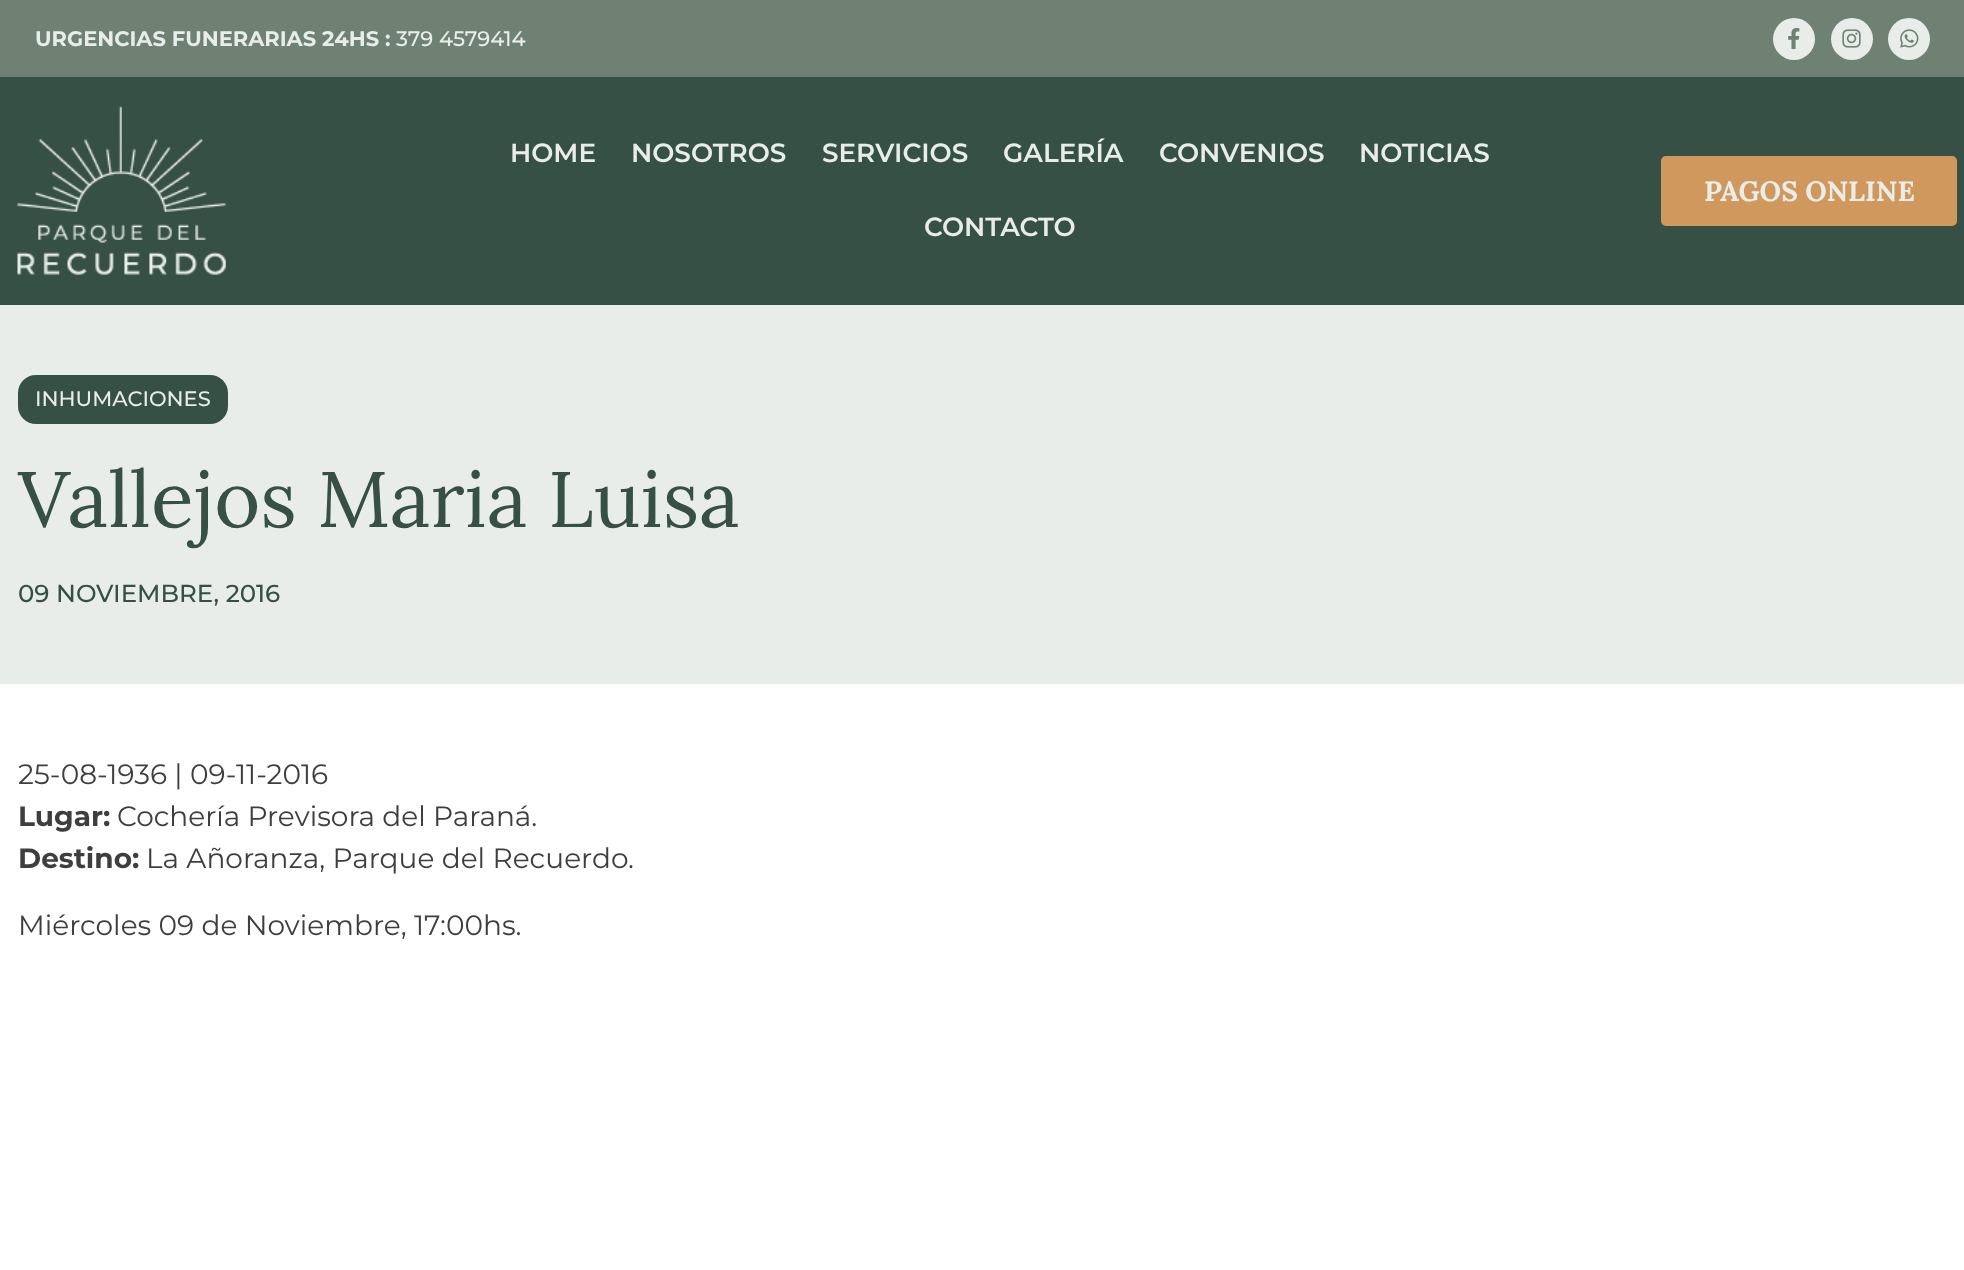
<svg xmlns="http://www.w3.org/2000/svg" width="1964" height="1270" viewBox="0 0 1964 1270">
  <rect width="100%" height="100%" fill="rgb(255,255,255)"/>
  <rect x="0" y="0" width="1964" height="77" fill="rgb(110,129,115)"/>
  <text x="35" y="46" font-family="Montserrat" font-size="21" font-weight="bold" fill="rgb(232,237,234)">URGENCIAS FUNERARIAS 24HS :</text>
  <text x="396" y="46" font-family="Montserrat" font-size="21" font-weight="500" fill="rgb(232,237,234)">379 4579414</text>
  <circle cx="1794" cy="39" r="21" fill="rgb(232,237,234)"/>
  <image x="1788" y="28" width="12" height="21" href="pic1.png"/>
  <circle cx="1852" cy="39" r="21" fill="rgb(232,237,234)"/>
  <image x="1842" y="29" width="19" height="19" href="pic2.png"/>
  <circle cx="1909" cy="39" r="21" fill="rgb(232,237,234)"/>
  <image x="1900" y="29" width="19" height="19" href="pic3.png"/>
  <rect x="0" y="77" width="1964" height="228" fill="rgb(54,80,69)"/>
  <image x="17" y="106" width="209" height="169" href="pic4.png"/>
  <g font-family="Montserrat" font-size="26.25" font-weight="600" fill="rgb(232,237,234)">
    <text x="510" y="162">HOME</text>
    <text x="631" y="162">NOSOTROS</text>
    <text x="822" y="162">SERVICIOS</text>
    <text x="1003" y="162">GALERÍA</text>
    <text x="1159" y="162">CONVENIOS</text>
    <text x="1359" y="162">NOTICIAS</text>
    <text x="924" y="236">CONTACTO</text>
  </g>
  <rect x="1661" y="156" width="296" height="70" rx="5" fill="rgb(209,152,93)"/>
  <text x="1704" y="201" font-family="Lora" font-size="28" font-weight="bold" fill="rgb(232,237,234)">PAGOS ONLINE</text>
  <rect x="0" y="305" width="1964" height="379" fill="rgb(232,237,234)"/>
  <rect x="18" y="375" width="210" height="49" rx="18" fill="rgb(54,80,69)"/>
  <text x="35" y="406" font-family="Montserrat" font-size="21" font-weight="500" fill="rgb(232,237,234)">INHUMACIONES</text>
  <text x="18" y="527" font-family="Lora" font-size="78.75" fill="rgb(54,80,69)">Vallejos Maria Luisa</text>
  <text x="18" y="602" font-family="Montserrat" font-size="24.5" font-weight="500" fill="rgb(54,80,69)">09 NOVIEMBRE, 2016</text>
  <text x="18" y="784" font-family="Montserrat" font-size="28" fill="rgb(62,62,62)">25-08-1936 | 09-11-2016</text>
  <text x="18" y="826" font-family="Montserrat" font-size="28" font-weight="bold" fill="rgb(62,62,62)">Lugar:</text>
  <text x="117" y="826" font-family="Montserrat" font-size="28" fill="rgb(62,62,62)">Cochería Previsora del Paraná.</text>
  <text x="18" y="868" font-family="Montserrat" font-size="28" font-weight="bold" fill="rgb(62,62,62)">Destino:</text>
  <g font-family="Montserrat" font-size="28" fill="rgb(62,62,62)">
    <text x="146" y="868">La Añoranza, Parque del Recuerdo.</text>
    <text x="18" y="935">Miércoles 09 de Noviembre, 17:00hs.</text>
  </g>
</svg>
